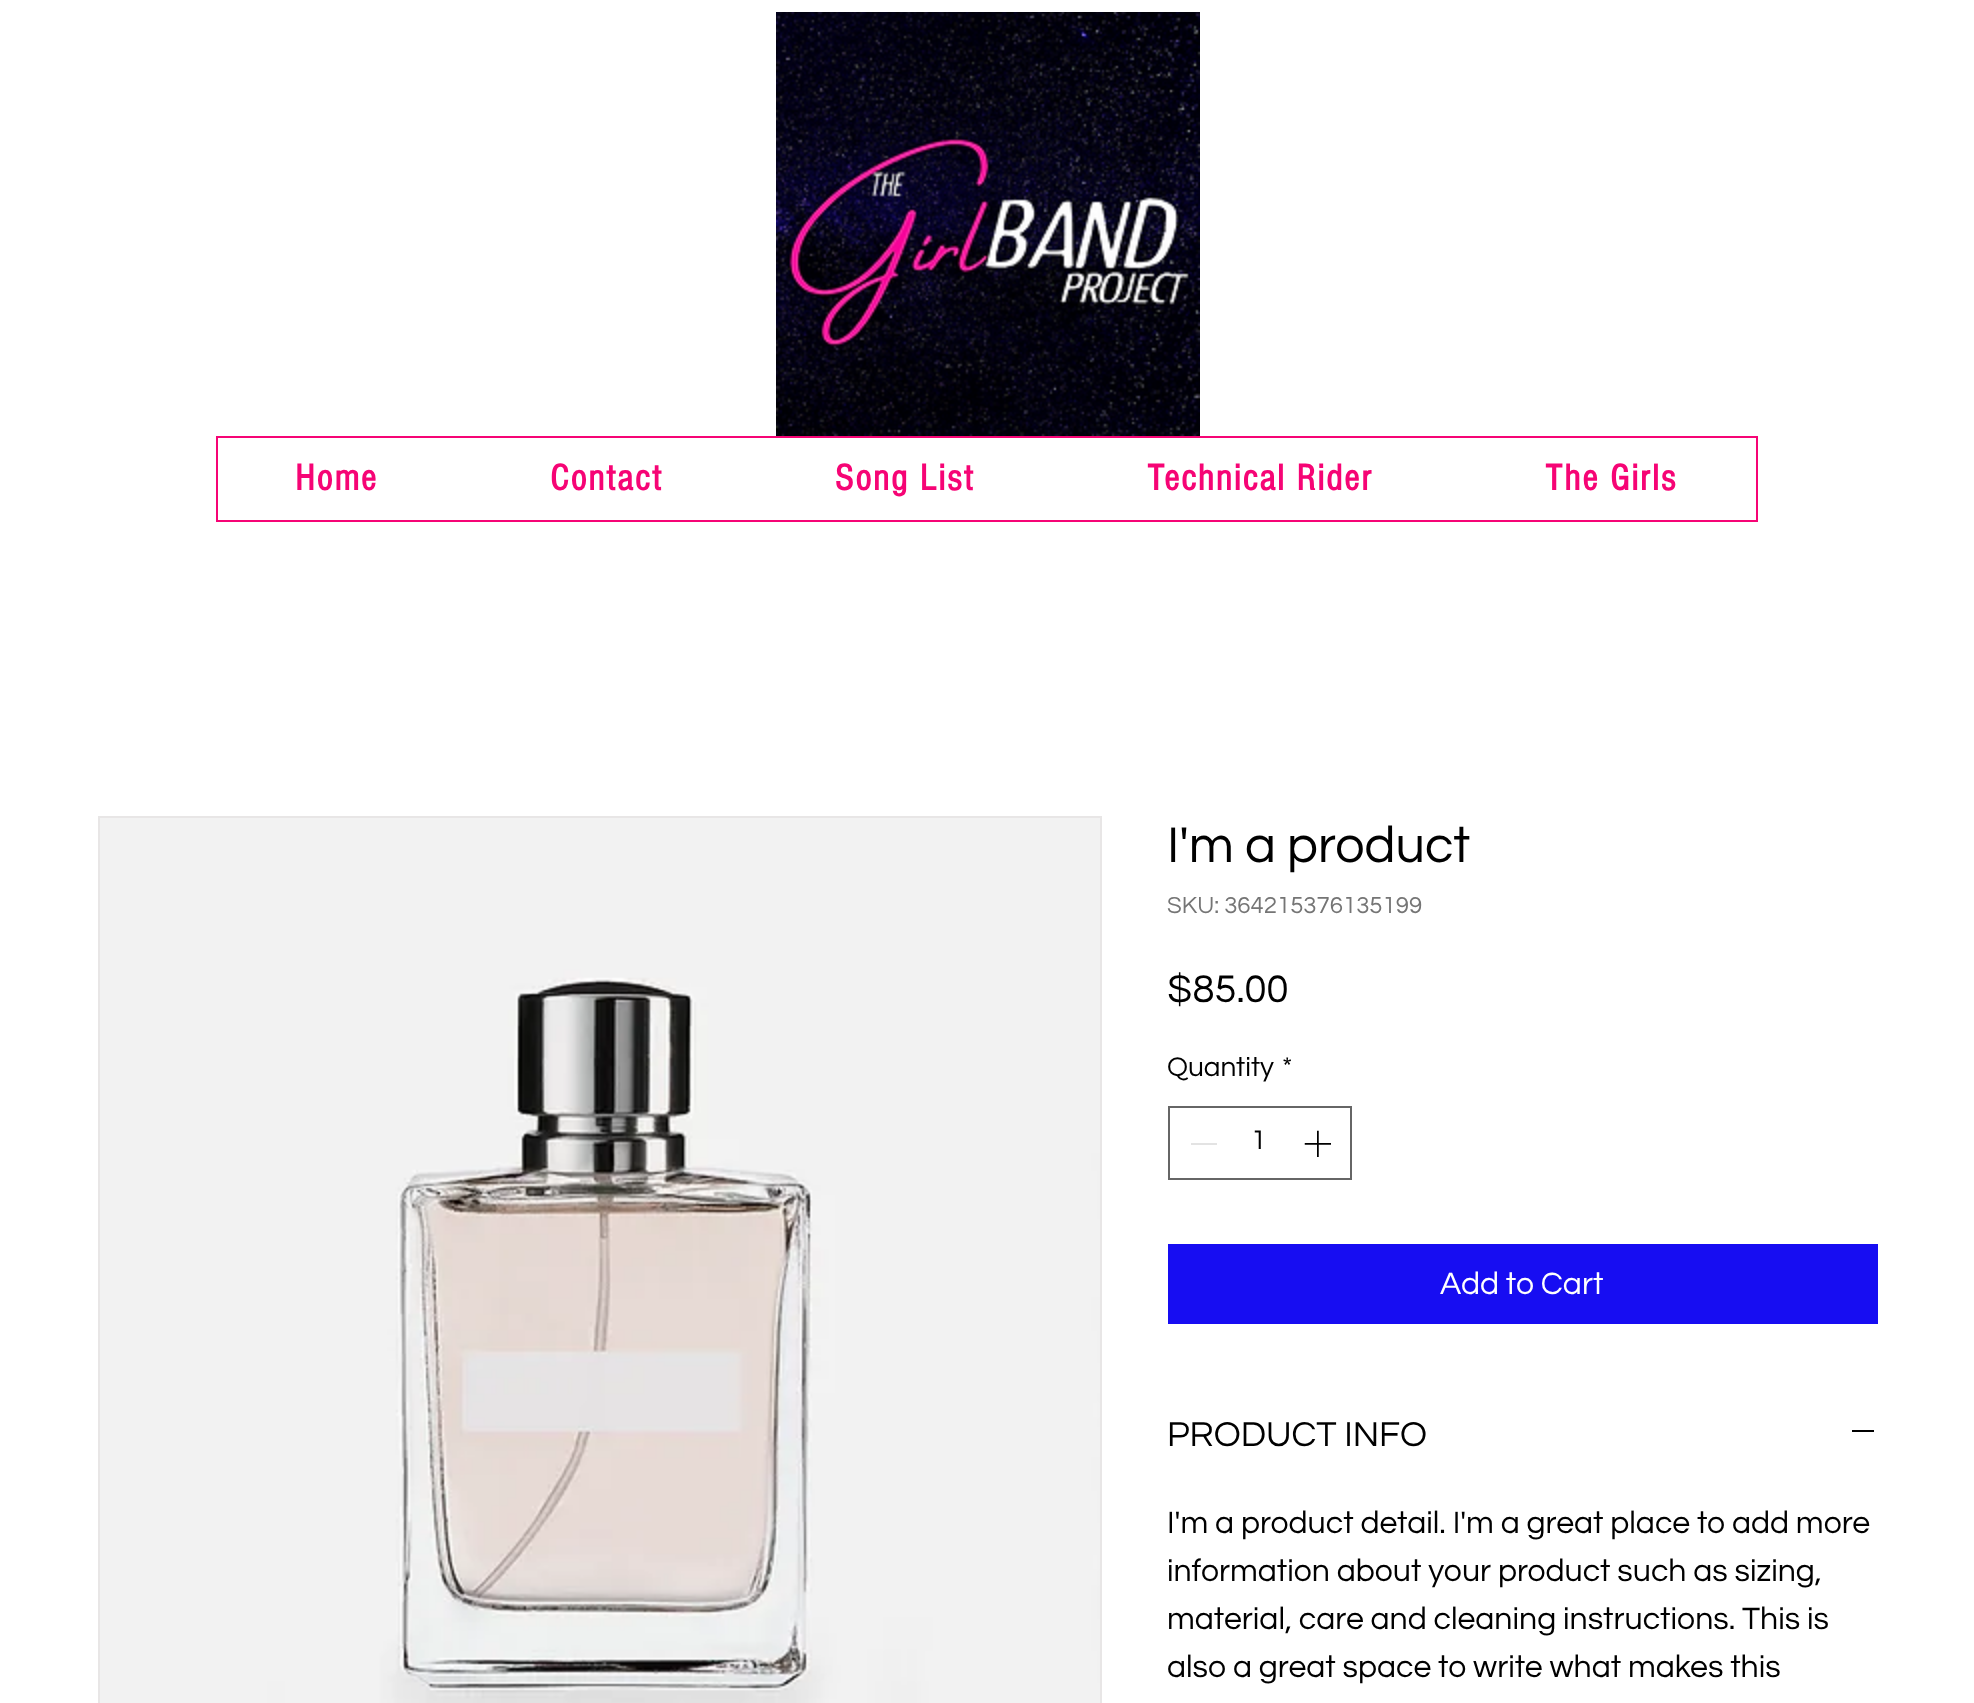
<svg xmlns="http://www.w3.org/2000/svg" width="1974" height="1703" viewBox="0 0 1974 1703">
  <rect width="100%" height="100%" fill="rgb(255,255,255)"/>
  <image x="776" y="12" width="424" height="424" href="pic1.png"/>
  <rect x="217" y="437" width="1540" height="84" fill="none" stroke="rgb(246,4,117)" stroke-width="2"/>
  <g font-family="'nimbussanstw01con'" font-size="38" font-weight="bold" letter-spacing="1.9" fill="rgb(246,4,117)">
    <text x="295" y="490">Home</text>
    <text x="550" y="490">Contact</text>
    <text x="835" y="490">Song List</text>
    <text x="1147" y="490">Technical Rider</text>
    <text x="1545" y="490">The Girls</text>
  </g>
  <rect x="99" y="817" width="1002" height="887" fill="none" stroke="rgb(232,230,230)" stroke-width="2"/>
  <image x="100" y="818" width="1000" height="885" href="pic2.png"/>
  <text x="1167" y="862" font-family="Questrial" font-size="52" fill="rgb(0,0,0)">I'm a product</text>
  <text x="1167" y="913" font-family="Questrial" font-size="24" fill="rgb(117,117,117)">SKU: 364215376135199</text>
  <text x="1167" y="1002" font-family="Questrial" font-size="40" fill="rgb(0,0,0)">$85.00</text>
  <g font-family="Questrial" font-size="28" fill="rgb(0,0,0)">
    <text x="1167" y="1076">Quantity</text>
    <text x="1282" y="1076">*</text>
  </g>
  <rect x="1169" y="1107" width="182" height="72" fill="none" stroke="rgb(102,102,102)" stroke-width="2"/>
  <rect x="1191" y="1143" width="26" height="2" fill="rgb(227,227,227)"/>
  <text x="1251" y="1149" font-family="Questrial" font-size="28" fill="rgb(0,0,0)">1</text>
  <image x="1304" y="1130" width="27" height="27" href="pic3.png"/>
  <rect x="1168" y="1244" width="710" height="80" fill="rgb(23,13,242)"/>
  <text x="1440" y="1294" font-family="Questrial" font-size="32" fill="rgb(255,255,255)">Add to Cart</text>
  <text x="1167" y="1446" font-family="Questrial" font-size="36" fill="rgb(0,0,0)">PRODUCT INFO</text>
  <rect x="1852" y="1430" width="22" height="2" fill="rgb(0,0,0)"/>
  <g font-family="Questrial" font-size="32" fill="rgb(0,0,0)">
    <text>
      <tspan x="1167" y="1533">I'm a product detail. I'm a great place to add more</tspan>
      <tspan x="1167" y="1581">information about your product such as sizing,</tspan>
      <tspan x="1167" y="1629">material, care and cleaning instructions. This is</tspan>
      <tspan x="1167" y="1677">also a great space to write what makes this</tspan>
    </text>
  </g>
</svg>
